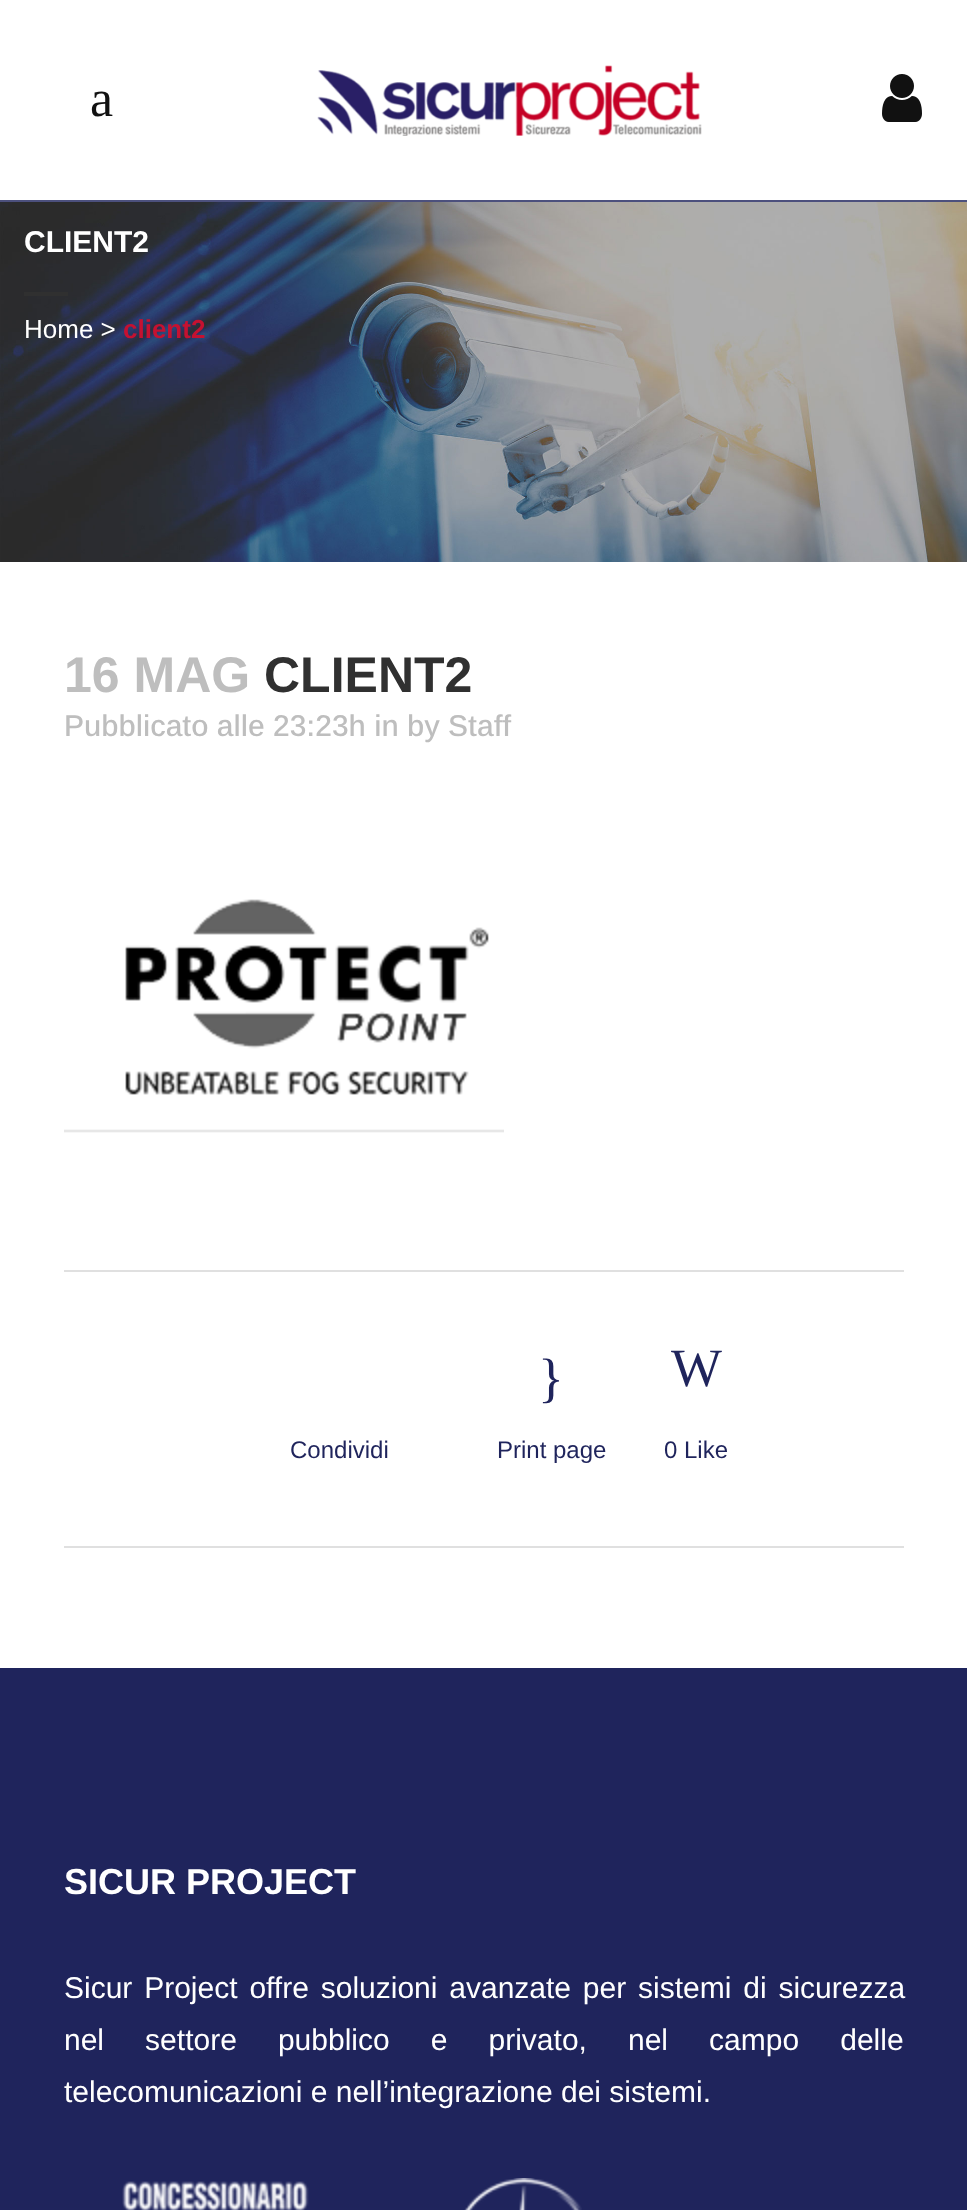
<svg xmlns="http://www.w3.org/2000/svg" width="967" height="2210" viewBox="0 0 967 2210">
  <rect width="100%" height="100%" fill="rgb(255,255,255)"/>
  <rect x="0" y="200" width="967" height="2" fill="rgb(76,80,125)"/>
  <text x="90" y="116" font-family="Liberation Serif" font-size="52" fill="rgb(17,17,17)">a</text>
  <image x="317" y="65" width="385" height="71" href="pic1.png"/>
  <image x="882" y="74" width="40" height="48" href="pic2.png"/>
  <image x="0" y="202" width="967" height="360" href="pic3.png"/>
  <text x="24" y="252" font-family="Arimo" font-size="30" font-weight="bold" fill="rgb(255,255,255)">CLIENT2</text>
  <rect x="24" y="292" width="44" height="4" fill="rgb(48,48,48)"/>
  <text x="24" y="338" font-family="Arimo" font-size="26" fill="rgb(255,255,255)">Home &gt;</text>
  <text x="123" y="338" font-family="Arimo" font-size="26" font-weight="bold" fill="rgb(197,17,49)">client2</text>
  <text x="64" y="692" font-family="Arimo" font-size="50" font-weight="bold" fill="rgb(190,190,190)">16 MAG</text>
  <text x="264" y="692" font-family="Arimo" font-size="50" font-weight="bold" fill="rgb(48,48,48)">CLIENT2</text>
  <text x="64" y="736" font-family="Arimo" font-size="30" font-weight="500" fill="rgb(190,190,190)">Pubblicato alle 23:23h in by Staff</text>
  <image x="64" y="899" width="440" height="234" href="pic4.png"/>
  <rect x="64" y="1270" width="840" height="2" fill="rgb(224,224,224)"/>
  <rect x="64" y="1546" width="840" height="2" fill="rgb(224,224,224)"/>
  <text x="290" y="1458" font-family="Arimo" font-size="24" fill="rgb(31,36,92)">Condividi</text>
  <text x="538" y="1396" font-family="Liberation Serif" font-size="54" fill="rgb(31,36,92)">}</text>
  <text x="497" y="1458" font-family="Arimo" font-size="24" fill="rgb(31,36,92)">Print page</text>
  <text x="671" y="1386" font-family="Liberation Serif" font-size="54" fill="rgb(31,36,92)">W</text>
  <text x="664" y="1458" font-family="Arimo" font-size="24" fill="rgb(31,36,92)">0 Like</text>
  <rect x="0" y="1668" width="967" height="542" fill="rgb(31,36,92)"/>
  <text x="64" y="1894" font-family="Arimo" font-size="36" font-weight="bold" fill="rgb(255,255,255)">SICUR PROJECT</text>
  <g font-family="Arimo" font-size="30" fill="rgb(255,255,255)">
    <text>
      <tspan x="64" y="1998" word-spacing="3.5">Sicur Project offre soluzioni avanzate per sistemi di sicurezza</tspan>
      <tspan x="64" y="2050" word-spacing="32.75">nel settore pubblico e privato, nel campo delle</tspan>
      <tspan x="64" y="2102">telecomunicazioni e nell’integrazione dei sistemi.</tspan>
    </text>
  </g>
  <image x="122" y="2181" width="187" height="29" href="pic5.png"/>
  <image x="464" y="2178" width="118" height="32" href="pic6.png"/>
</svg>
